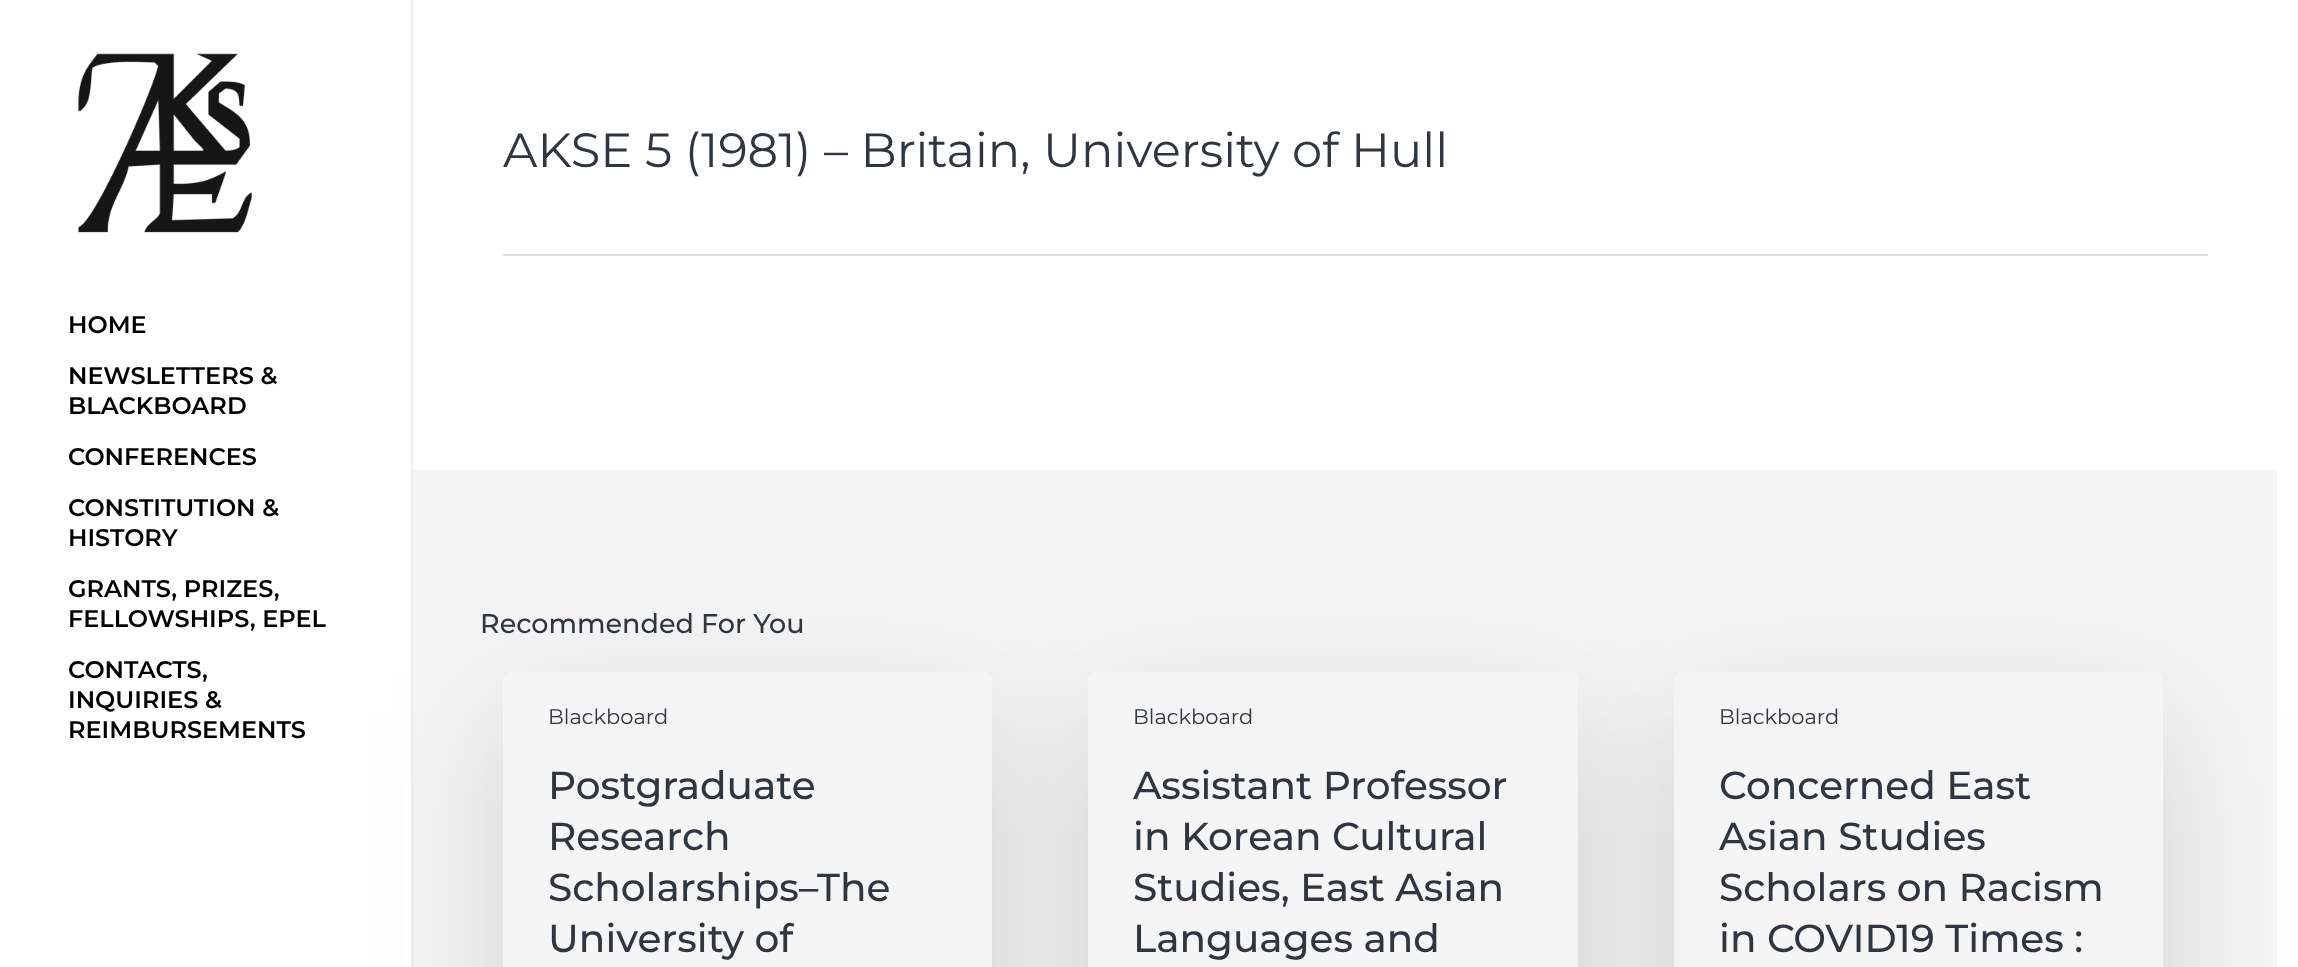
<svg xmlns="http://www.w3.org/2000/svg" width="2298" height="967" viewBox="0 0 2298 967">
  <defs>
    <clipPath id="clip1"><path d="M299 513H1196V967H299ZM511 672H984C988.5 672 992 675.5 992 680V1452C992 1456.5 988.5 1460 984 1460H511C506.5 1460 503 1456.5 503 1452V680C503 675.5 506.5 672 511 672Z" clip-rule="evenodd"/></clipPath>
    <clipPath id="clip2"><path d="M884 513H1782V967H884ZM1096 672H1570C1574.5 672 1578 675.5 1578 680V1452C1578 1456.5 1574.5 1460 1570 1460H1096C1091.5 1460 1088 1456.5 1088 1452V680C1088 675.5 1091.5 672 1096 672Z" clip-rule="evenodd"/></clipPath>
    <clipPath id="clip3"><path d="M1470 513H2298V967H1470ZM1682 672H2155C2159.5 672 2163 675.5 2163 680V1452C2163 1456.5 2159.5 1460 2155 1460H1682C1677.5 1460 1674 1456.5 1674 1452V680C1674 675.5 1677.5 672 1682 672Z" clip-rule="evenodd"/></clipPath>
  </defs>
  <rect width="100%" height="100%" fill="rgb(255,255,255)"/>
  <rect x="413" y="470" width="1864" height="497" fill="rgb(245,245,245)"/>
  <g clip-path="url(#clip1)">
    <rect x="503" y="717" width="489" height="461" rx="8" fill="rgba(0,0,0,0.14)" filter="blur(67.5px)"/>
  </g>
  <rect x="404" y="784" width="7" height="183" fill="rgb(255,255,255)"/>
  <rect x="411" y="0" width="2" height="967" fill="rgb(237,237,237)"/>
  <image x="78" y="53" width="174" height="180" href="pic1.png"/>
  <g font-family="Montserrat" font-size="24" font-weight="600" fill="rgb(0,0,0)">
    <text x="68" y="333">HOME</text>
    <text>
      <tspan x="68" y="384">NEWSLETTERS &amp;</tspan>
      <tspan x="68" y="414">BLACKBOARD</tspan>
    </text>
    <text x="68" y="465">CONFERENCES</text>
    <text>
      <tspan x="68" y="516">CONSTITUTION &amp;</tspan>
      <tspan x="68" y="546">HISTORY</tspan>
    </text>
    <text>
      <tspan x="68" y="597">GRANTS, PRIZES,</tspan>
      <tspan x="68" y="627">FELLOWSHIPS, EPEL</tspan>
    </text>
    <text>
      <tspan x="68" y="678">CONTACTS,</tspan>
      <tspan x="68" y="708">INQUIRIES &amp;</tspan>
      <tspan x="68" y="738">REIMBURSEMENTS</tspan>
    </text>
  </g>
  <rect x="503" y="254" width="1705" height="2" fill="rgb(221,221,221)"/>
  <text x="503" y="167" font-family="Montserrat" font-size="48" font-weight="100" fill="rgb(47,54,64)">AKSE 5 (1981) – Britain, University of Hull</text>
  <text x="480" y="633" font-family="Montserrat" font-size="27" font-weight="500" fill="rgb(47,54,64)">Recommended For You</text>
  <text x="548" y="724" font-family="Montserrat" font-size="21" font-weight="100" fill="rgb(47,54,64)">Blackboard</text>
  <g font-family="Montserrat" font-size="39" font-weight="500" fill="rgb(47,54,64)">
    <text>
      <tspan x="548" y="799">Postgraduate</tspan>
      <tspan x="548" y="850">Research</tspan>
      <tspan x="548" y="901">Scholarships–The</tspan>
      <tspan x="548" y="952">University of</tspan>
    </text>
  </g>
  <g clip-path="url(#clip2)">
    <rect x="1088" y="717" width="490" height="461" rx="8" fill="rgba(0,0,0,0.14)" filter="blur(67.5px)"/>
  </g>
  <text x="1133" y="724" font-family="Montserrat" font-size="21" font-weight="100" fill="rgb(47,54,64)">Blackboard</text>
  <g font-family="Montserrat" font-size="39" font-weight="500" fill="rgb(47,54,64)">
    <text>
      <tspan x="1133" y="799">Assistant Professor</tspan>
      <tspan x="1133" y="850">in Korean Cultural</tspan>
      <tspan x="1133" y="901">Studies, East Asian</tspan>
      <tspan x="1133" y="952">Languages and</tspan>
    </text>
  </g>
  <g clip-path="url(#clip3)">
    <rect x="1674" y="717" width="489" height="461" rx="8" fill="rgba(0,0,0,0.14)" filter="blur(67.5px)"/>
  </g>
  <text x="1719" y="724" font-family="Montserrat" font-size="21" font-weight="100" fill="rgb(47,54,64)">Blackboard</text>
  <g font-family="Montserrat" font-size="39" font-weight="500" fill="rgb(47,54,64)">
    <text>
      <tspan x="1719" y="799">Concerned East</tspan>
      <tspan x="1719" y="850">Asian Studies</tspan>
      <tspan x="1719" y="901">Scholars on Racism</tspan>
      <tspan x="1719" y="952">in COVID19 Times :</tspan>
    </text>
  </g>
</svg>
